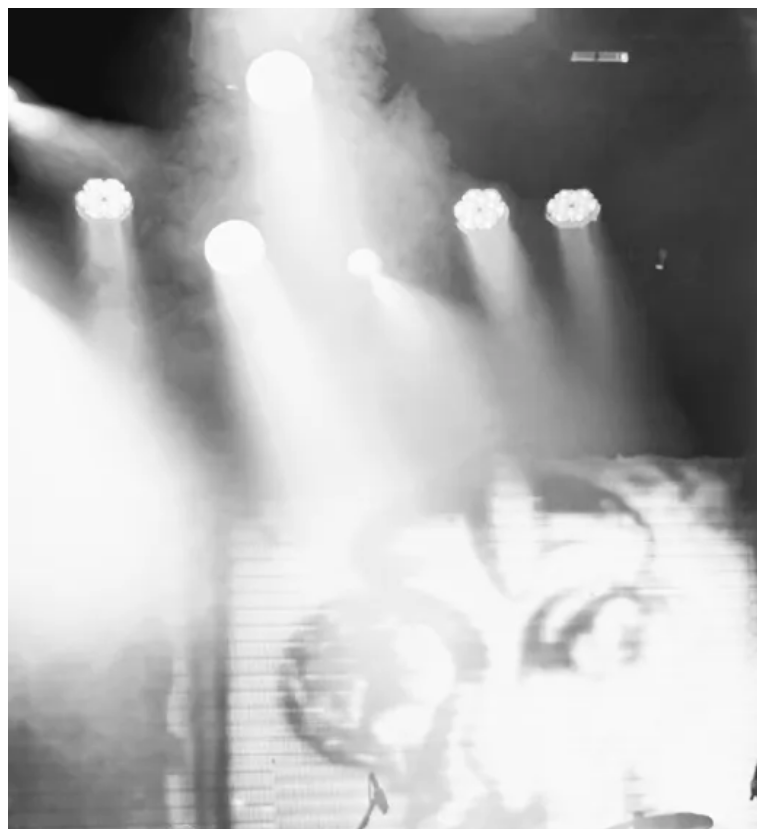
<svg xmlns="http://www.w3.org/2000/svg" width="757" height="829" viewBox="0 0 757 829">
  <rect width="100%" height="100%" fill="rgb(255,255,255)"/>
  <image x="8" y="8" width="749" height="821" href="pic1.png"/>
</svg>
